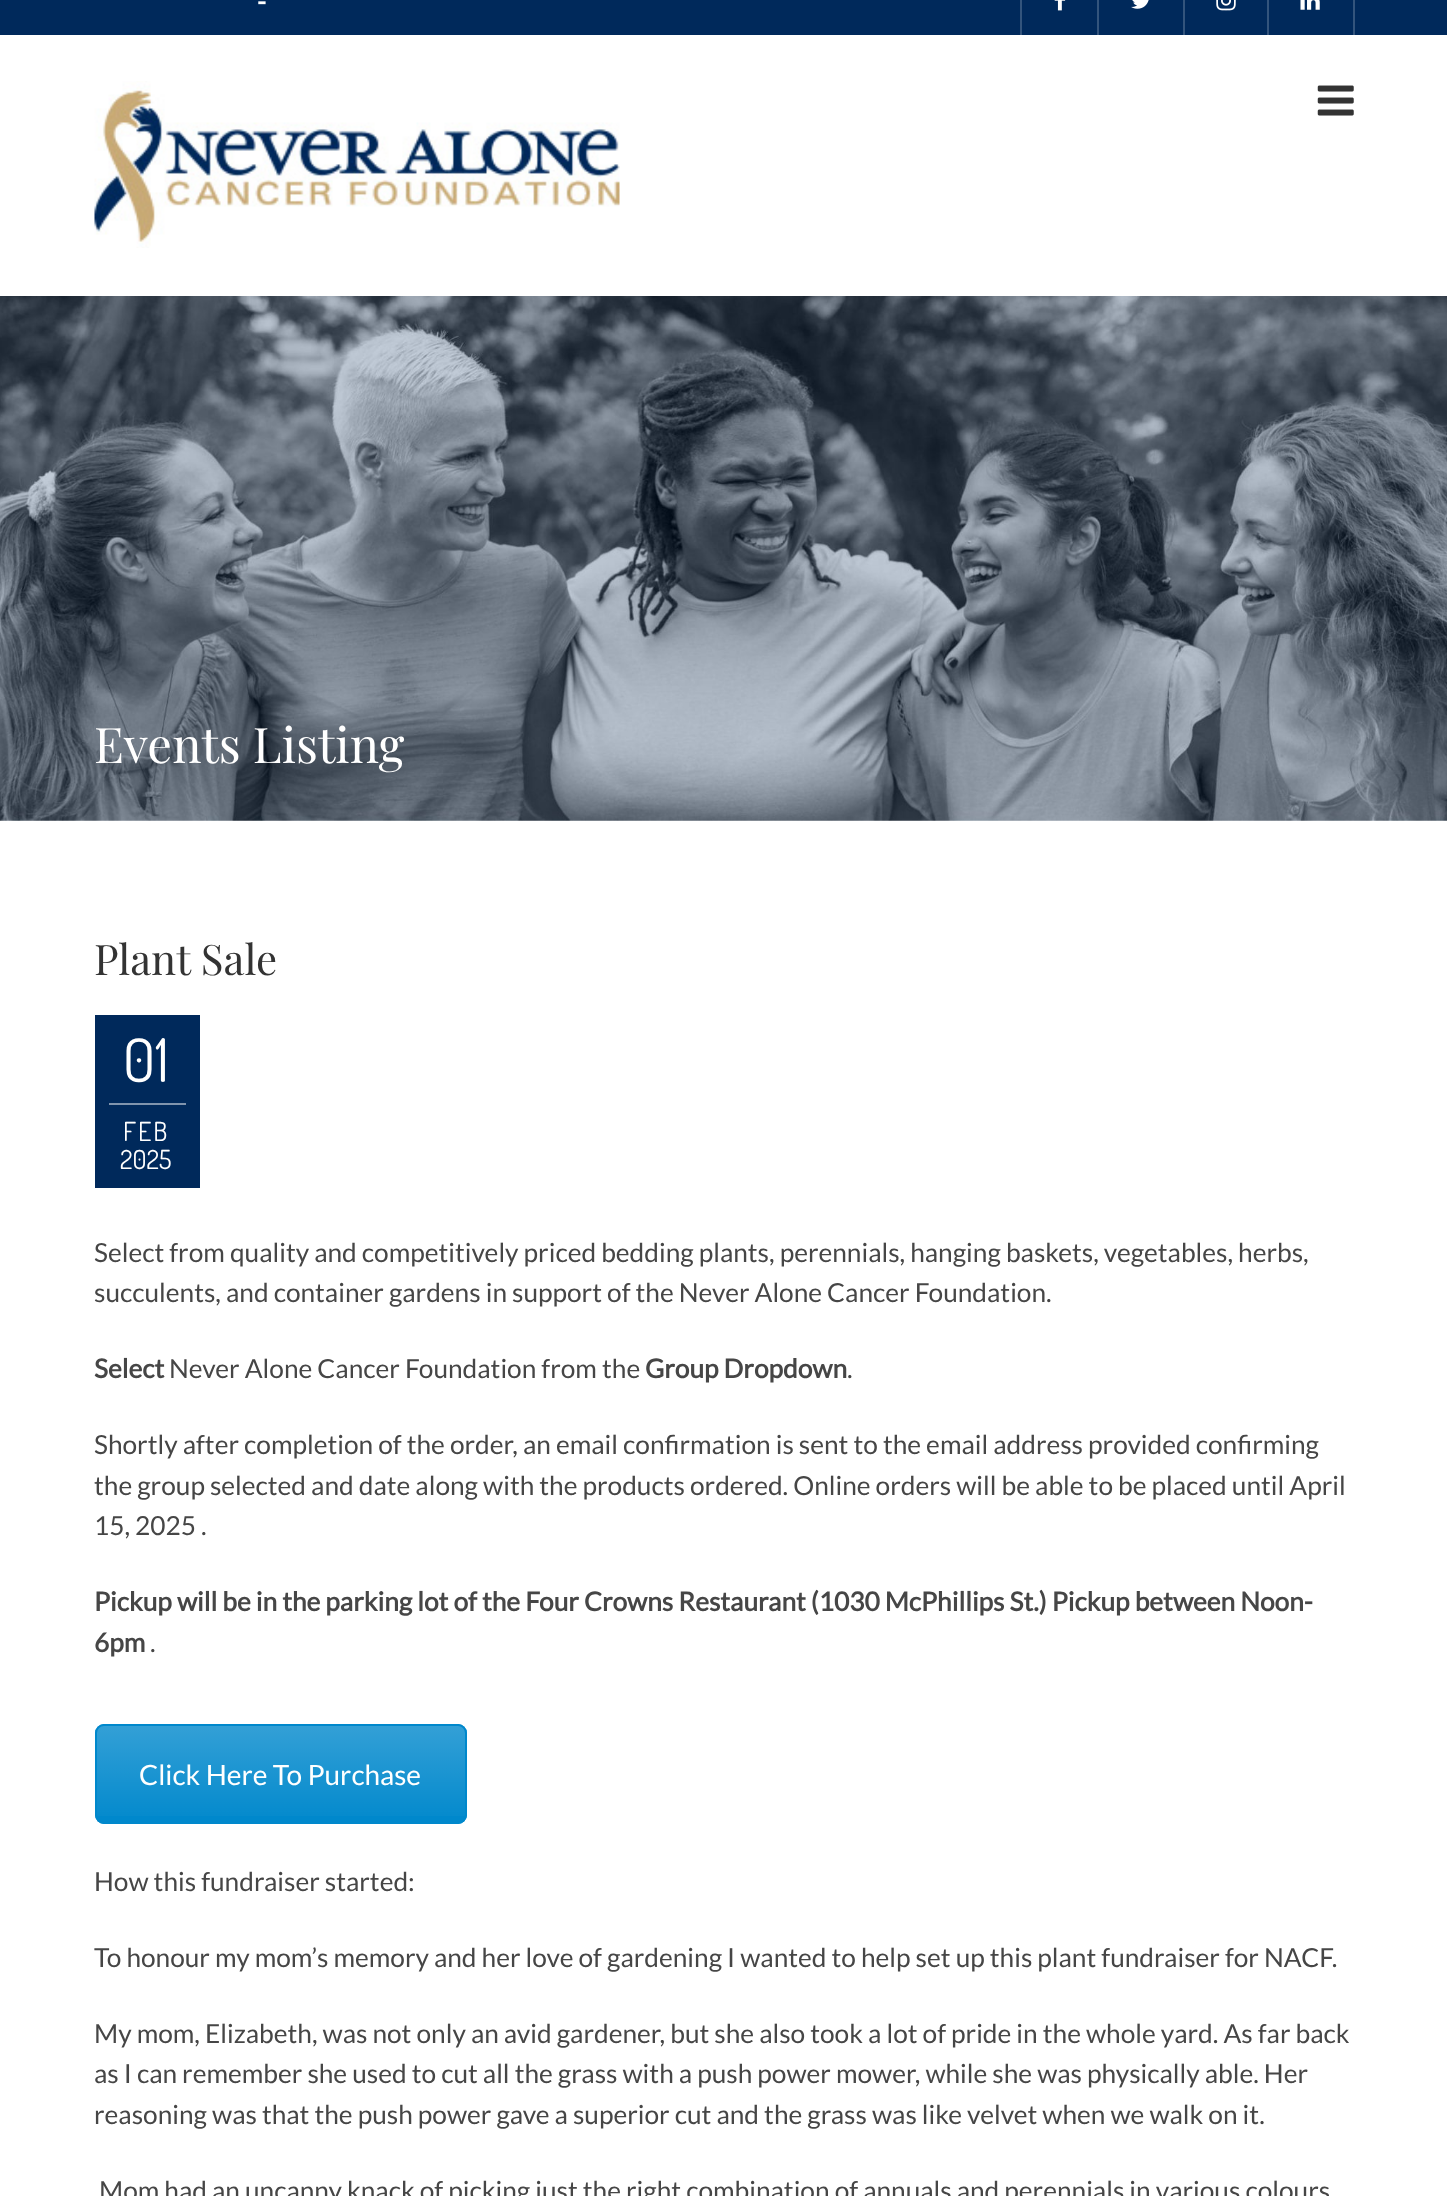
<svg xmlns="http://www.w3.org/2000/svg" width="1447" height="2196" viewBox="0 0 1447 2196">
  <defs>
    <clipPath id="clip1"><rect x="95" y="1724" width="372" height="100" rx="9"/></clipPath>
    <linearGradient id="g1" gradientUnits="userSpaceOnUse" x1="281" y1="1726" x2="281" y2="1822"><stop offset="0" stop-color="rgb(255,255,255)" stop-opacity="0.2"/><stop offset="1" stop-color="rgb(255,255,255)" stop-opacity="0.01"/></linearGradient>
  </defs>
  <rect width="100%" height="100%" fill="rgb(255,255,255)"/>
  <rect x="0" y="0" width="1447" height="35" fill="rgb(0,41,91)"/>
  <text x="257" y="11" font-family="Lato" font-size="26.25" font-weight="bold" fill="rgb(255,255,255)">-</text>
  <rect x="1020" y="0" width="2" height="35" fill="rgb(51,84,124)"/>
  <rect x="1097" y="0" width="2" height="35" fill="rgb(51,84,124)"/>
  <image x="1054" y="0" width="12" height="11" href="pic1.png"/>
  <rect x="1183" y="0" width="2" height="35" fill="rgb(51,84,124)"/>
  <image x="1131" y="0" width="18" height="9" href="pic2.png"/>
  <rect x="1267" y="0" width="2" height="35" fill="rgb(51,84,124)"/>
  <image x="1216" y="0" width="20" height="11" href="pic3.png"/>
  <rect x="1353" y="0" width="2" height="35" fill="rgb(51,84,124)"/>
  <image x="1300" y="0" width="20" height="10" href="pic4.png"/>
  <image x="94" y="81" width="526" height="167" href="pic5.png"/>
  <image x="1317" y="85" width="37" height="31" href="pic6.png"/>
  <image x="0" y="296" width="1447" height="525" href="pic7.png"/>
  <text x="94" y="763" font-family="Playfair Display" font-size="49" fill="rgb(255,255,255)">Events Listing</text>
  <text x="94" y="975" font-family="Playfair Display" font-size="42" fill="rgb(51,51,51)">Plant Sale</text>
  <rect x="95" y="1015" width="105" height="173" fill="rgb(0,41,91)"/>
  <rect x="109" y="1103" width="77" height="2" fill="rgb(128,148,173)"/>
  <text x="123" y="1082" font-family="Dosis" font-size="60" fill="rgb(255,255,255)">01</text>
  <text x="123" y="1141" font-family="Dosis" font-size="26.25" letter-spacing="2" fill="rgb(255,255,255)">FEB</text>
  <text x="120" y="1169" font-family="Dosis" font-size="26.25" fill="rgb(255,255,255)">2025</text>
  <g font-family="Lato" font-size="26.25" fill="rgb(70,70,70)">
    <text>
      <tspan x="94" y="1262">Select from quality and competitively priced bedding plants, perennials, hanging baskets, vegetables, herbs,</tspan>
      <tspan x="94" y="1302">succulents, and container gardens in support of the Never Alone Cancer Foundation.</tspan>
    </text>
  </g>
  <text x="94" y="1378" font-family="Lato" font-size="26.25" font-weight="bold" fill="rgb(70,70,70)">Select</text>
  <text x="169" y="1378" font-family="Lato" font-size="26.25" fill="rgb(70,70,70)">Never Alone Cancer Foundation from the</text>
  <text x="645" y="1378" font-family="Lato" font-size="26.25" font-weight="bold" fill="rgb(70,70,70)">Group Dropdown</text>
  <g font-family="Lato" font-size="26.25" fill="rgb(70,70,70)">
    <text x="847" y="1378">.</text>
    <text>
      <tspan x="94" y="1454">Shortly after completion of the order, an email confirmation is sent to the email address provided confirming</tspan>
      <tspan x="94" y="1495">the group selected and date along with the products ordered. Online orders will be able to be placed until April</tspan>
      <tspan x="94" y="1535">15, 2025 .</tspan>
    </text>
  </g>
  <g font-family="Lato" font-size="26.25" font-weight="bold" fill="rgb(70,70,70)">
    <text>
      <tspan x="94" y="1611">Pickup will be in the parking lot of the Four Crowns Restaurant (1030 McPhillips St.) Pickup between Noon-</tspan>
      <tspan x="94" y="1652">6pm</tspan>
    </text>
  </g>
  <text x="150" y="1652" font-family="Lato" font-size="26.25" fill="rgb(70,70,70)">.</text>
  <rect x="95" y="1724" width="372" height="100" rx="9" fill="rgb(0,136,204)"/>
  <g clip-path="url(#clip1)">
    <rect x="95" y="1726" width="372" height="90" fill="url(#g1)"/>
  </g>
  <rect x="96" y="1725" width="370" height="98" rx="8" fill="none" stroke="rgb(0,136,204)" stroke-width="2"/>
  <text x="139" y="1785" font-family="Lato" font-size="28" fill="rgb(255,255,255)">Click Here To Purchase</text>
  <g font-family="Lato" font-size="26.25" fill="rgb(70,70,70)">
    <text x="94" y="1891">How this fundraiser started:</text>
    <text x="94" y="1967">To honour my mom’s memory and her love of gardening I wanted to help set up this plant fundraiser for NACF.</text>
    <text>
      <tspan x="94" y="2043">My mom, Elizabeth, was not only an avid gardener, but she also took a lot of pride in the whole yard. As far back</tspan>
      <tspan x="94" y="2083">as I can remember she used to cut all the grass with a push power mower, while she was physically able. Her</tspan>
      <tspan x="94" y="2124">reasoning was that the push power gave a superior cut and the grass was like velvet when we walk on it.</tspan>
    </text>
    <text x="99" y="2200">Mom had an uncanny knack of picking just the right combination of annuals and perennials in various colours</text>
  </g>
</svg>
